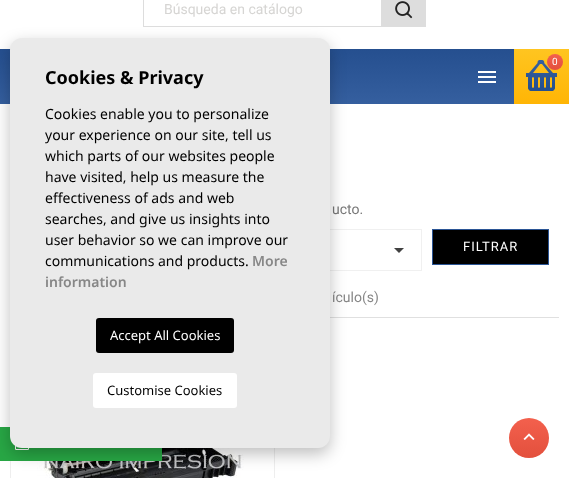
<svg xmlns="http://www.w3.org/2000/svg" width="569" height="478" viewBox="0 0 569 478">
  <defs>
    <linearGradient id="g1" gradientUnits="userSpaceOnUse" x1="542" y1="49" x2="542" y2="104"><stop offset="0" stop-color="rgb(255,197,32)"/><stop offset="1" stop-color="rgb(255,181,5)"/></linearGradient>
    <linearGradient id="g2" gradientUnits="userSpaceOnUse" x1="555" y1="54" x2="555" y2="70"><stop offset="0" stop-color="rgb(243,96,77)"/><stop offset="1" stop-color="rgb(227,80,61)"/></linearGradient>
    <linearGradient id="g3" gradientUnits="userSpaceOnUse" x1="285" y1="104" x2="285" y2="49"><stop offset="0" stop-color="rgb(53,95,159)"/><stop offset="1" stop-color="rgb(37,79,143)"/></linearGradient>
    <linearGradient id="g4" gradientUnits="userSpaceOnUse" x1="529" y1="418" x2="529" y2="458"><stop offset="0" stop-color="rgb(243,96,77)"/><stop offset="1" stop-color="rgb(227,80,61)"/></linearGradient>
  </defs>
  <rect width="100%" height="100%" fill="rgb(255,255,255)"/>
  <rect x="143" y="26" width="238" height="1" fill="rgb(221,221,221)"/>
  <rect x="143" y="0" width="1" height="27" fill="rgb(221,221,221)"/>
  <text x="164" y="14" font-family="Roboto" font-size="14" fill="rgb(214,213,211)">Búsqueda en catálogo</text>
  <rect x="381" y="0" width="45" height="27" fill="rgb(221,221,221)"/>
  <image x="395" y="1" width="18" height="18" href="pic1.png"/>
  <rect x="514" y="49" width="55" height="55" fill="url(#g1)"/>
  <image x="526" y="60" width="31" height="31" href="pic2.png"/>
  <circle cx="555" cy="62" r="8" fill="url(#g2)"/>
  <text x="552" y="65" font-family="Roboto" font-size="10" fill="rgb(255,255,255)">0</text>
  <rect x="0" y="49" width="514" height="55" fill="url(#g3)"/>
  <image x="478" y="71" width="18" height="12" href="pic3.png"/>
  <rect x="330" y="317" width="229" height="1" fill="rgb(224,224,224)"/>
  <text x="332" y="214" font-family="Roboto" font-size="14" fill="rgb(119,119,119)">ucto.</text>
  <rect x="10.5" y="229.5" width="411" height="41" fill="none" stroke="rgb(240,240,240)"/>
  <path d="M394 248H404L399 253Z" fill="rgb(65,65,65)"/>
  <rect x="432.5" y="229.5" width="116" height="35" fill="rgb(0,0,0)" stroke="rgb(43,85,149)"/>
  <text x="463" y="251" font-family="Roboto" font-size="13" letter-spacing="1" fill="rgb(255,255,255)">FILTRAR</text>
  <text x="332" y="302" font-family="Roboto" font-size="14" fill="rgb(135,135,135)">ículo(s)</text>
  <rect x="10.5" y="333.5" width="264" height="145" fill="none" stroke="rgb(238,238,238)"/>
  <image x="37" y="448" width="207" height="30" href="pic4.png"/>
  <rect x="0" y="427" width="162" height="34" fill="rgb(40,167,69)"/>
  <image x="15" y="445" width="14" height="5" href="pic5.png"/>
  <circle cx="529" cy="438" r="20" fill="url(#g4)"/>
  <image x="523" y="433" width="12" height="7" href="pic6.png"/>
  <rect x="10" y="44" width="320" height="410" rx="12" fill="rgba(0,0,0,0.25)" filter="blur(8px)"/>
  <rect x="10" y="38" width="320" height="410" rx="12" fill="rgb(234,234,234)"/>
  <text x="45" y="84" font-family="Noto Sans" font-size="18" font-weight="bold" fill="rgb(0,0,0)">Cookies &amp; Privacy</text>
  <g font-family="Noto Sans" font-size="14" fill="rgb(0,0,0)">
    <text>
      <tspan x="45" y="119">Cookies enable you to personalize</tspan>
      <tspan x="45" y="140">your experience on our site, tell us</tspan>
      <tspan x="45" y="161">which parts of our websites people</tspan>
      <tspan x="45" y="182">have visited, help us measure the</tspan>
      <tspan x="45" y="203">effectiveness of ads and web</tspan>
      <tspan x="45" y="224">searches, and give us insights into</tspan>
      <tspan x="45" y="245">user behavior so we can improve our</tspan>
      <tspan x="45" y="266">communications and products.</tspan>
    </text>
  </g>
  <g font-family="Noto Sans" font-size="14" font-weight="600" fill="rgb(135,135,135)">
    <text x="252" y="266">More</text>
    <text x="45" y="287">information</text>
  </g>
  <rect x="96" y="318" width="138" height="35" rx="3" fill="rgb(0,0,0)"/>
  <text x="110" y="340" font-family="Noto Sans" font-size="13" fill="rgb(255,255,255)">Accept All Cookies</text>
  <rect x="93" y="373" width="144" height="35" rx="3" fill="rgb(255,255,255)"/>
  <text x="107" y="395" font-family="Noto Sans" font-size="13" fill="rgb(0,0,0)">Customise Cookies</text>
</svg>
